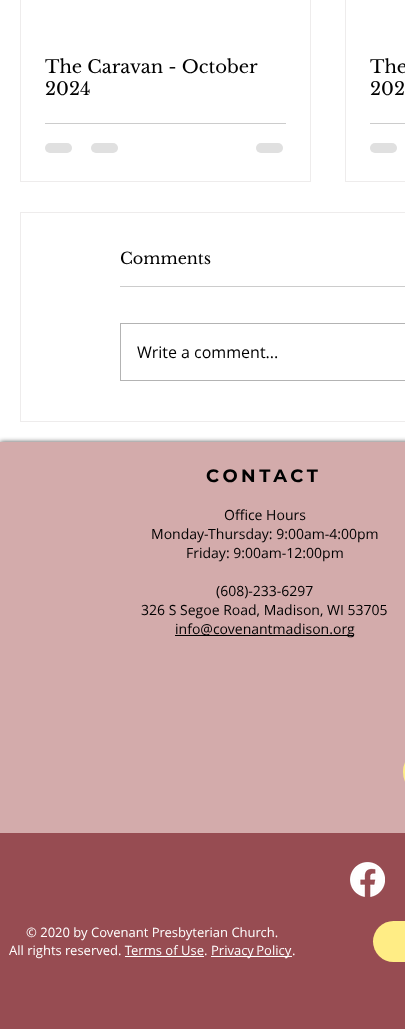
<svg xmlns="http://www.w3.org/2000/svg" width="405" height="1029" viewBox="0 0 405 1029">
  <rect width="100%" height="100%" fill="rgb(255,255,255)"/>
  <rect x="20.5" y="-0.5" width="290" height="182" fill="none" stroke="rgb(238,236,236)"/>
  <g font-family="Libre Baskerville" font-size="18" fill="rgb(0,0,0)">
    <text>
      <tspan x="45" y="73">The Caravan - October</tspan>
      <tspan x="45" y="95">2024</tspan>
    </text>
  </g>
  <rect x="45" y="123" width="241" height="1" fill="rgb(204,204,204)"/>
  <rect x="45" y="143" width="27" height="10" rx="5" fill="rgb(224,224,224)"/>
  <rect x="91" y="143" width="27" height="10" rx="5" fill="rgb(224,224,224)"/>
  <rect x="256" y="143" width="27" height="10" rx="5" fill="rgb(224,224,224)"/>
  <rect x="345.5" y="-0.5" width="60" height="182" fill="none" stroke="rgb(238,236,236)"/>
  <g font-family="Libre Baskerville" font-size="18" fill="rgb(0,0,0)">
    <text>
      <tspan x="370" y="73">The</tspan>
      <tspan x="370" y="95">202</tspan>
    </text>
  </g>
  <rect x="370" y="123" width="35" height="1" fill="rgb(204,204,204)"/>
  <rect x="370" y="143" width="27" height="10" rx="5" fill="rgb(224,224,224)"/>
  <rect x="20.5" y="212.5" width="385" height="209" fill="none" stroke="rgb(238,236,236)"/>
  <text x="120" y="264" font-family="Libre Baskerville" font-size="16" fill="rgb(0,0,0)">Comments</text>
  <rect x="120" y="286" width="285" height="1" fill="rgb(204,204,204)"/>
  <rect x="120.5" y="323.5" width="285" height="57" fill="none" stroke="rgb(179,179,179)"/>
  <text x="137" y="358" font-family="Open Sans" font-size="16" fill="rgb(0,0,0)">Write a comment...</text>
  <rect x="0" y="442" width="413" height="587" fill="rgba(0,0,0,0.7)" filter="blur(2.5px)"/>
  <rect x="0" y="442" width="405" height="391" fill="rgb(211,171,171)"/>
  <text x="206" y="482" font-family="Montserrat" font-size="18" font-weight="bold" letter-spacing="3.5" fill="rgb(0,0,0)">CONTACT</text>
  <g font-family="Open Sans" font-size="14" fill="rgb(0,0,0)">
    <text x="224" y="520">Office Hours</text>
    <text x="151" y="539">Monday-Thursday: 9:00am-4:00pm</text>
    <text x="186" y="558">Friday: 9:00am-12:00pm</text>
    <text x="216" y="596">(608)-233-6297</text>
    <text x="141" y="615">326 S Segoe Road, Madison, WI 53705</text>
  </g>
  <rect x="175" y="635" width="179" height="1" fill="rgb(0,0,0)"/>
  <text x="175" y="634" font-family="Open Sans" font-size="14" fill="rgb(0,0,0)">info@covenantmadison.org</text>
  <rect x="403" y="757" width="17" height="30" rx="15" fill="rgb(255,237,133)"/>
  <rect x="0" y="833" width="405" height="196" fill="rgb(151,76,82)"/>
  <image x="350" y="862" width="35" height="35" href="pic1.png"/>
  <g font-family="Open Sans" font-size="13" fill="rgb(255,255,255)">
    <text x="26" y="937">© 2020 by Covenant Presbyterian Church.</text>
    <text x="9" y="955">All rights reserved. Terms of Use.</text>
  </g>
  <rect x="125" y="956" width="79" height="1" fill="rgb(255,255,255)"/>
  <rect x="211" y="956" width="81" height="1" fill="rgb(255,255,255)"/>
  <g font-family="Open Sans" font-size="13" fill="rgb(255,255,255)">
    <text x="211" y="955" word-spacing="-1">Privacy Policy</text>
    <text x="292" y="955">.</text>
  </g>
  <rect x="373" y="921" width="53" height="41" rx="20.5" fill="rgb(255,237,133)"/>
</svg>
